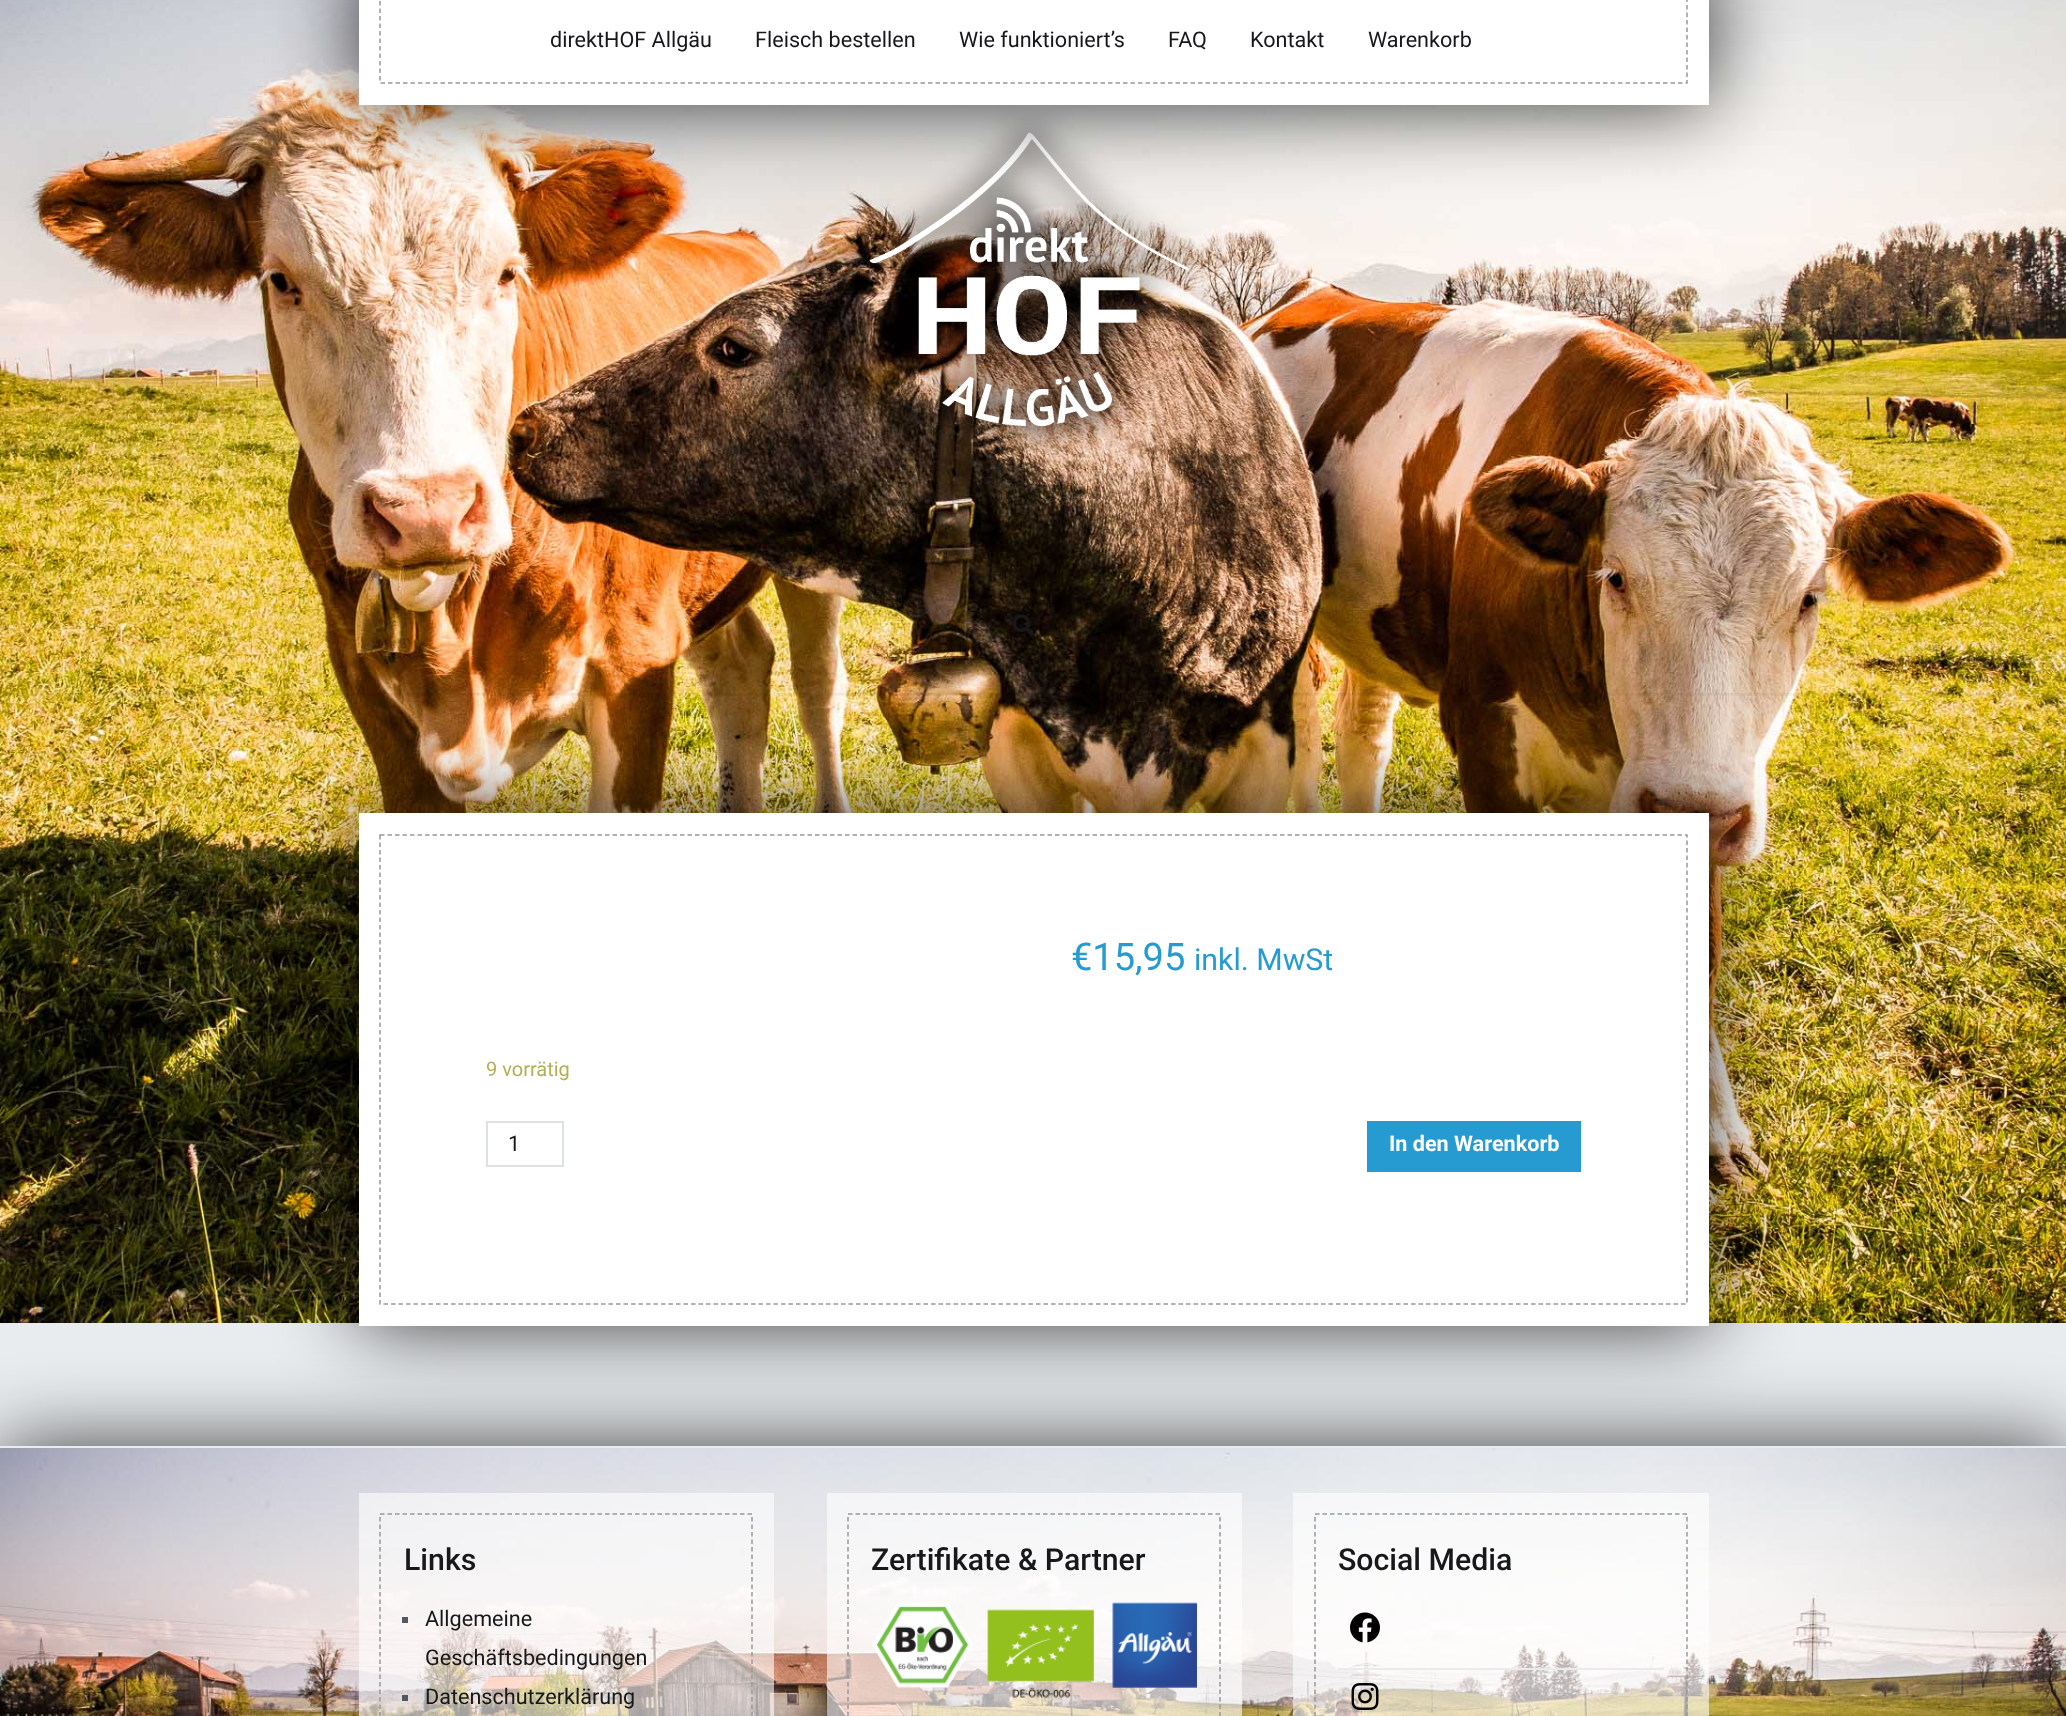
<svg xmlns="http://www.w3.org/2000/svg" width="2066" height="1716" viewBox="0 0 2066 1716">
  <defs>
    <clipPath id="clip1"><rect x="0" y="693" width="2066" height="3"/></clipPath>
  </defs>
  <rect width="100%" height="100%" fill="rgb(233,236,239)"/>
  <image x="0" y="0" width="2066" height="1323" href="pic1.png"/>
  <g clip-path="url(#clip1)">
    <rect x="0" y="-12" width="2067" height="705" fill="rgba(0,0,0,0.1)" filter="blur(4px)"/>
  </g>
  <image x="849" y="108" width="358" height="348" href="pic3.png"/>
  <rect x="359" y="-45" width="1350" height="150" fill="rgba(0,0,0,0.75)" filter="blur(40.5px)"/>
  <rect x="359" y="0" width="1350" height="105" fill="rgb(255,255,255)"/>
  <g font-family="Roboto" font-size="21.6" fill="rgb(22,24,26)">
    <text x="550" y="47">direktHOF Allgäu</text>
    <text x="755" y="47">Fleisch bestellen</text>
    <text x="959" y="47">Wie funktioniert’s</text>
    <text x="1168" y="47">FAQ</text>
    <text x="1250" y="47">Kontakt</text>
    <text x="1368" y="47">Warenkorb</text>
  </g>
  <path d="M380-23H1687V83H380Z" fill="none" stroke="rgb(153,153,153)" stroke-width="1.5" stroke-dasharray="4.5 3"/>
  <image x="1012" y="614" width="22" height="22" href="pic2.png"/>
  <rect x="359" y="813" width="1350" height="513" fill="rgba(0,0,0,0.75)" filter="blur(40.5px)"/>
  <rect x="359" y="813" width="1350" height="513" fill="rgb(255,255,255)"/>
  <path d="M380 835H1687V1304H380Z" fill="none" stroke="rgb(153,153,153)" stroke-width="1.5" stroke-dasharray="4.5 3"/>
  <text x="1071" y="970" font-family="Roboto" font-size="38" fill="rgb(38,155,209)">€15,95</text>
  <text x="1194" y="970" font-family="Roboto" font-size="30.25" fill="rgb(38,155,209)">inkl. MwSt</text>
  <text x="486" y="1076" font-family="Roboto" font-size="20" fill="rgb(179,175,84)">9 vorrätig</text>
  <rect x="487" y="1122" width="76" height="44" fill="none" stroke="rgb(222,226,230)" stroke-width="2"/>
  <text x="508" y="1151" font-family="Roboto" font-size="21.6" fill="rgb(22,24,26)">1</text>
  <rect x="1367" y="1121" width="214" height="51" fill="rgb(38,155,209)"/>
  <text x="1389" y="1151" font-family="Roboto" font-size="21.6" font-weight="bold" fill="rgb(255,255,255)">In den Warenkorb</text>
  <rect x="0" y="1446" width="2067" height="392" fill="rgba(0,0,0,0.75)" filter="blur(40.5px)"/>
  <image x="0" y="1448" width="2066" height="268" href="pic4.png"/>
  <rect x="0" y="1446" width="2066" height="2" fill="rgb(233,236,239)"/>
  <rect x="359" y="1493" width="415" height="223" fill="rgba(255,255,255,0.6)"/>
  <text x="404" y="1570" font-family="Roboto" font-size="30.25" font-weight="500" fill="rgb(22,24,26)">Links</text>
  <rect x="402" y="1617" width="6" height="6" fill="rgb(81,88,95)"/>
  <g font-family="Roboto" font-size="21.6" fill="rgb(22,24,26)">
    <text>
      <tspan x="425" y="1626">Allgemeine</tspan>
      <tspan x="425" y="1665">Geschäftsbedingungen</tspan>
    </text>
  </g>
  <rect x="402" y="1695" width="6" height="6" fill="rgb(81,88,95)"/>
  <text x="425" y="1704" font-family="Roboto" font-size="21.6" fill="rgb(22,24,26)">Datenschutzerklärung</text>
  <path d="M380 1514H752V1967H380Z" fill="none" stroke="rgb(153,153,153)" stroke-width="1.5" stroke-dasharray="4.5 3"/>
  <rect x="827" y="1493" width="415" height="223" fill="rgba(255,255,255,0.6)"/>
  <text x="871" y="1570" font-family="Roboto" font-size="30.25" font-weight="500" fill="rgb(22,24,26)">Zertifikate &amp; Partner</text>
  <image x="872" y="1602" width="325" height="96" href="pic5.png"/>
  <path d="M848 1514H1220V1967H848Z" fill="none" stroke="rgb(153,153,153)" stroke-width="1.5" stroke-dasharray="4.5 3"/>
  <rect x="1293" y="1493" width="416" height="223" fill="rgba(255,255,255,0.6)"/>
  <text x="1338" y="1570" font-family="Roboto" font-size="30.25" font-weight="500" fill="rgb(22,24,26)">Social Media</text>
  <rect x="1338" y="1668" width="326" height="2" fill="rgb(233,236,239)"/>
  <path d="M1315 1514H1687V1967H1315Z" fill="none" stroke="rgb(153,153,153)" stroke-width="1.5" stroke-dasharray="4.5 3"/>
  <image x="1350" y="1612" width="30" height="31" href="pic6.png"/>
  <image x="1351" y="1683" width="28" height="27" href="pic7.png"/>
</svg>
